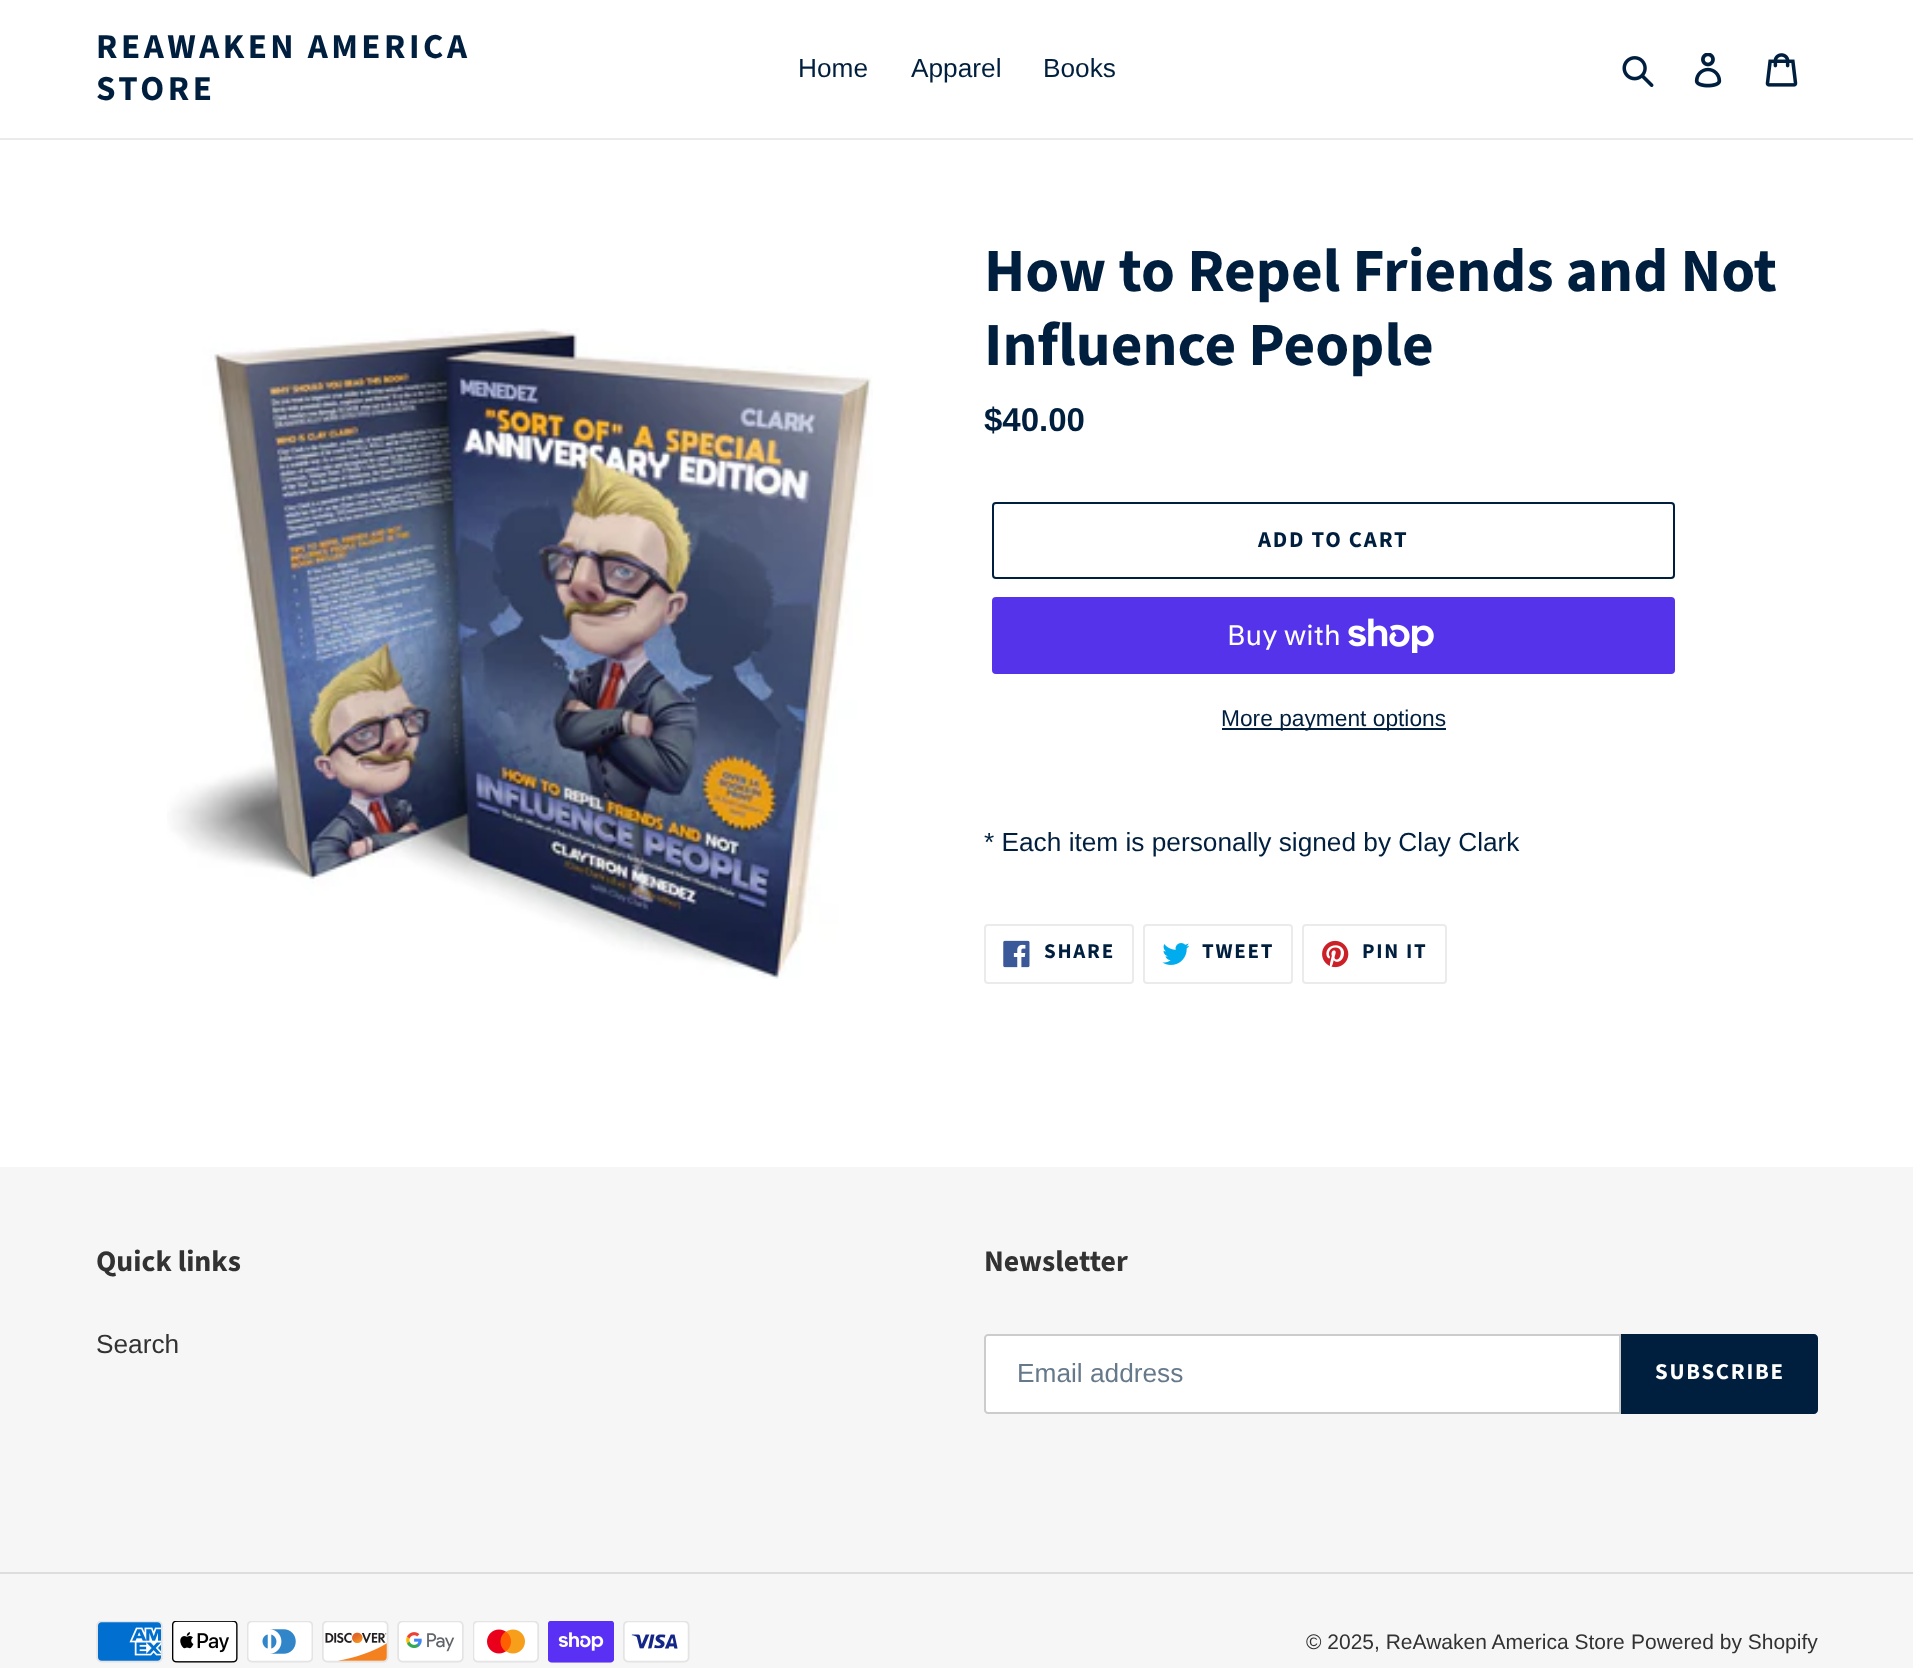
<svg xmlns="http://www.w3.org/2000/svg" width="1913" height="1668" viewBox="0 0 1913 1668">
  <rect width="100%" height="100%" fill="rgb(255,255,255)"/>
  <rect x="0" y="138" width="1913" height="2" fill="rgb(235,235,235)"/>
  <g font-family="Source Sans Pro" font-size="35" font-weight="bold" letter-spacing="3.5" fill="rgb(0,31,62)">
    <text>
      <tspan x="96" y="58">REAWAKEN AMERICA</tspan>
      <tspan x="96" y="100">STORE</tspan>
    </text>
  </g>
  <g font-family="Liberation Sans" font-size="26.25" fill="rgb(0,31,62)">
    <text x="798" y="77">Home</text>
    <text x="911" y="77">Apparel</text>
    <text x="1043" y="77">Books</text>
  </g>
  <image x="1622" y="56" width="32" height="31" href="pic1.png"/>
  <image x="1694" y="53" width="28" height="35" href="pic2.png"/>
  <image x="1765" y="53" width="33" height="34" href="pic3.png"/>
  <image x="167" y="328" width="706" height="651" href="pic4.png"/>
  <g font-family="Source Sans Pro" font-size="61.25" font-weight="bold" fill="rgb(0,31,62)">
    <text>
      <tspan x="984" y="291">How to Repel Friends and Not</tspan>
      <tspan x="984" y="365">Influence People</tspan>
    </text>
  </g>
  <text x="984" y="431" font-family="Liberation Sans" font-size="33" font-weight="bold" fill="rgb(0,31,62)">$40.00</text>
  <rect x="993" y="503" width="681" height="75" rx="3" fill="none" stroke="rgb(0,31,62)" stroke-width="2"/>
  <text x="1258" y="547" font-family="Source Sans Pro" font-size="22.75" font-weight="bold" letter-spacing="1.75" fill="rgb(0,31,62)">ADD TO CART</text>
  <rect x="992" y="597" width="683" height="77" rx="4" fill="rgb(84,51,235)"/>
  <text x="1227" y="645" font-family="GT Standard" font-size="28" fill="rgb(255,255,255)">Buy with</text>
  <image x="1348" y="618" width="86" height="35" href="pic5.png"/>
  <rect x="1222" y="728" width="224" height="2" fill="rgb(0,31,62)"/>
  <text x="1221" y="726" font-family="Liberation Sans" font-size="22.75" fill="rgb(0,31,62)">More payment options</text>
  <text x="984" y="851" font-family="Liberation Sans" font-size="26.25" fill="rgb(0,31,62)">* Each item is personally signed by Clay Clark</text>
  <rect x="985" y="925" width="148" height="58" rx="3" fill="none" stroke="rgb(235,235,235)" stroke-width="2"/>
  <image x="1003" y="940" width="27" height="28" href="pic6.png"/>
  <text x="1044" y="958" font-family="Source Sans Pro" font-size="21" font-weight="bold" letter-spacing="1.75" fill="rgb(0,31,62)">SHARE</text>
  <rect x="1144" y="925" width="148" height="58" rx="3" fill="none" stroke="rgb(235,235,235)" stroke-width="2"/>
  <image x="1162" y="943" width="28" height="22" href="pic7.png"/>
  <text x="1202" y="958" font-family="Source Sans Pro" font-size="21" font-weight="bold" letter-spacing="1.75" fill="rgb(0,31,62)">TWEET</text>
  <rect x="1303" y="925" width="143" height="58" rx="3" fill="none" stroke="rgb(235,235,235)" stroke-width="2"/>
  <image x="1322" y="940" width="27" height="28" href="pic8.png"/>
  <text x="1362" y="958" font-family="Source Sans Pro" font-size="21" font-weight="bold" letter-spacing="1.75" fill="rgb(0,31,62)">PIN IT</text>
  <rect x="0" y="1167" width="1913" height="501" fill="rgb(246,246,246)"/>
  <text x="96" y="1271" font-family="Source Sans Pro" font-size="29.75" font-weight="bold" fill="rgb(51,50,50)">Quick links</text>
  <text x="96" y="1353" font-family="Liberation Sans" font-size="26.25" fill="rgb(51,50,50)">Search</text>
  <text x="984" y="1271" font-family="Source Sans Pro" font-size="29.75" font-weight="bold" fill="rgb(51,50,50)">Newsletter</text>
  <path d="M988 1335H1620V1413H988C986.5 1413 985 1411.5 985 1410V1338C985 1336.5 986.5 1335 988 1335Z" fill="rgb(255,255,255)" stroke="rgb(204,204,204)" stroke-width="2"/>
  <text x="1017" y="1382" font-family="Liberation Sans" font-size="26.25" fill="rgb(102,121,139)">Email address</text>
  <path d="M1621 1334H1814C1816 1334 1818 1336 1818 1338V1410C1818 1412 1816 1414 1814 1414H1621Z" fill="rgb(0,31,62)"/>
  <text x="1655" y="1379" font-family="Source Sans Pro" font-size="22.75" font-weight="bold" letter-spacing="1.75" fill="rgb(255,255,255)">SUBSCRIBE</text>
  <rect x="0" y="1572" width="1913" height="2" fill="rgb(221,221,221)"/>
  <image x="96" y="1621" width="67" height="42" href="pic9.png"/>
  <image x="172" y="1621" width="66" height="42" href="pic10.png"/>
  <image x="247" y="1621" width="66" height="42" href="pic11.png"/>
  <image x="322" y="1621" width="67" height="42" href="pic12.png"/>
  <image x="397" y="1621" width="67" height="42" href="pic13.png"/>
  <image x="473" y="1621" width="66" height="42" href="pic14.png"/>
  <image x="548" y="1621" width="66" height="42" href="pic15.png"/>
  <image x="623" y="1621" width="67" height="42" href="pic16.png"/>
  <g font-family="Liberation Sans" font-size="21" fill="rgb(51,50,50)">
    <text x="1306" y="1649">© 2025, ReAwaken America Store</text>
    <text x="1631" y="1649">Powered by Shopify</text>
  </g>
</svg>
